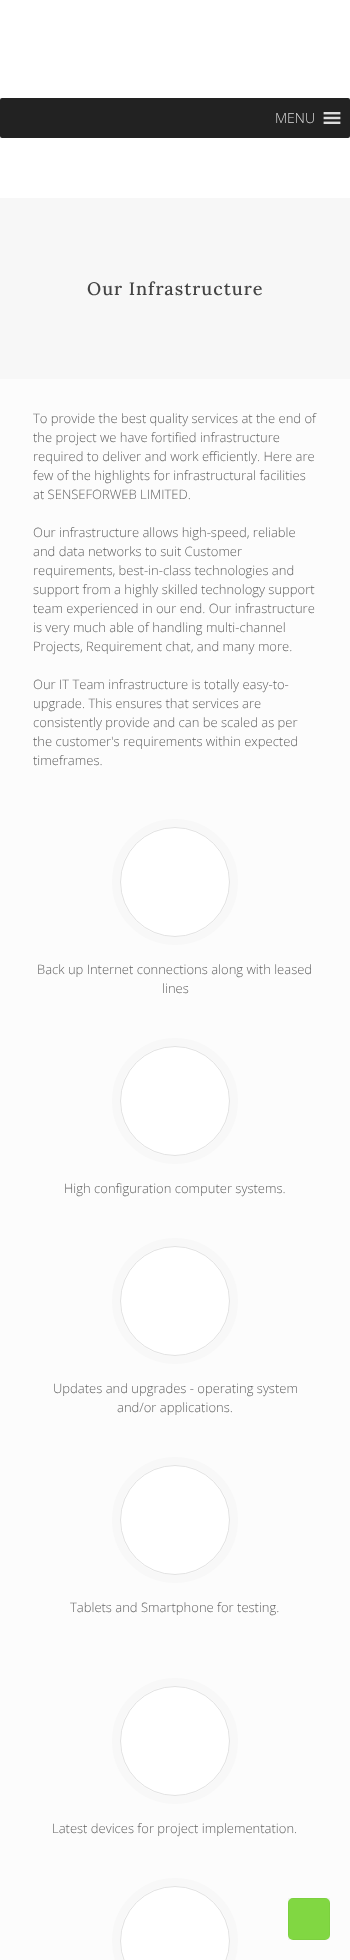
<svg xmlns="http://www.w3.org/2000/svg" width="350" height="1960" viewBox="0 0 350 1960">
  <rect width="100%" height="100%" fill="rgb(252,252,252)"/>
  <rect x="0" y="0" width="350" height="198" fill="rgb(255,255,255)"/>
  <rect x="0" y="98" width="350" height="40" rx="2" fill="rgb(34,34,34)"/>
  <text x="275" y="123" font-family="Open Sans" font-size="14" font-weight="300" fill="rgb(221,221,221)">MENU</text>
  <image x="323" y="112" width="18" height="12" href="pic1.png"/>
  <rect x="0" y="198" width="350" height="181" fill="rgb(247,247,247)"/>
  <text x="87" y="295" font-family="Lora" font-size="18" font-weight="500" letter-spacing="1" fill="rgb(68,68,68)">Our Infrastructure</text>
  <g font-family="Open Sans" font-size="13" font-weight="300" fill="rgb(98,98,98)">
    <text>
      <tspan x="33" y="423">To provide the best quality services at the end of</tspan>
      <tspan x="33" y="442">the project we have fortified infrastructure</tspan>
      <tspan x="33" y="461">required to deliver and work efficiently. Here are</tspan>
      <tspan x="33" y="480">few of the highlights for infrastructural facilities</tspan>
      <tspan x="33" y="499">at SENSEFORWEB LIMITED.</tspan>
    </text>
    <text>
      <tspan x="33" y="537">Our infrastructure allows high-speed, reliable</tspan>
      <tspan x="33" y="556">and data networks to suit Customer</tspan>
      <tspan x="33" y="575">requirements, best-in-class technologies and</tspan>
      <tspan x="33" y="594">support from a highly skilled technology support</tspan>
      <tspan x="33" y="613">team experienced in our end. Our infrastructure</tspan>
      <tspan x="33" y="632">is very much able of handling multi-channel</tspan>
      <tspan x="33" y="651">Projects, Requirement chat, and many more.</tspan>
    </text>
    <text>
      <tspan x="33" y="689">Our IT Team infrastructure is totally easy-to-</tspan>
      <tspan x="33" y="708">upgrade. This ensures that services are</tspan>
      <tspan x="33" y="727">consistently provide and can be scaled as per</tspan>
      <tspan x="33" y="746">the customer's requirements within expected</tspan>
      <tspan x="33" y="765">timeframes.</tspan>
    </text>
  </g>
  <circle cx="175" cy="882" r="59" fill="rgb(255,255,255)" stroke="rgb(248,248,248)" stroke-width="8"/>
  <circle cx="175" cy="882" r="54.5" fill="none" stroke="rgb(226,226,226)"/>
  <g font-family="Open Sans" font-size="13" font-weight="300" fill="rgb(98,98,98)">
    <text x="37" y="974">Back up Internet connections along with leased</text>
    <text x="162" y="993">lines</text>
  </g>
  <circle cx="175" cy="1101" r="59" fill="rgb(255,255,255)" stroke="rgb(248,248,248)" stroke-width="8"/>
  <circle cx="175" cy="1101" r="54.5" fill="none" stroke="rgb(226,226,226)"/>
  <text x="64" y="1193" font-family="Open Sans" font-size="13" font-weight="300" fill="rgb(98,98,98)">High configuration computer systems.</text>
  <circle cx="175" cy="1301" r="59" fill="rgb(255,255,255)" stroke="rgb(248,248,248)" stroke-width="8"/>
  <circle cx="175" cy="1301" r="54.5" fill="none" stroke="rgb(226,226,226)"/>
  <g font-family="Open Sans" font-size="13" font-weight="300" fill="rgb(98,98,98)">
    <text x="53" y="1393">Updates and upgrades - operating system</text>
    <text x="117" y="1412">and/or applications.</text>
  </g>
  <circle cx="175" cy="1520" r="59" fill="rgb(255,255,255)" stroke="rgb(248,248,248)" stroke-width="8"/>
  <circle cx="175" cy="1520" r="54.5" fill="none" stroke="rgb(226,226,226)"/>
  <text x="70" y="1612" font-family="Open Sans" font-size="13" font-weight="300" fill="rgb(98,98,98)">Tablets and Smartphone for testing.</text>
  <circle cx="175" cy="1741" r="59" fill="rgb(255,255,255)" stroke="rgb(248,248,248)" stroke-width="8"/>
  <circle cx="175" cy="1741" r="54.5" fill="none" stroke="rgb(226,226,226)"/>
  <text x="52" y="1833" font-family="Open Sans" font-size="13" font-weight="300" fill="rgb(98,98,98)">Latest devices for project implementation.</text>
  <circle cx="175" cy="1941" r="59" fill="rgb(255,255,255)" stroke="rgb(248,248,248)" stroke-width="8"/>
  <circle cx="175" cy="1941" r="54.5" fill="none" stroke="rgb(226,226,226)"/>
  <rect x="288" y="1898" width="42" height="42" rx="5" fill="rgb(129,215,66)"/>
  <rect x="288.5" y="1898.5" width="41" height="41" fill="none" stroke="rgba(0,0,0,0.03)"/>
</svg>
